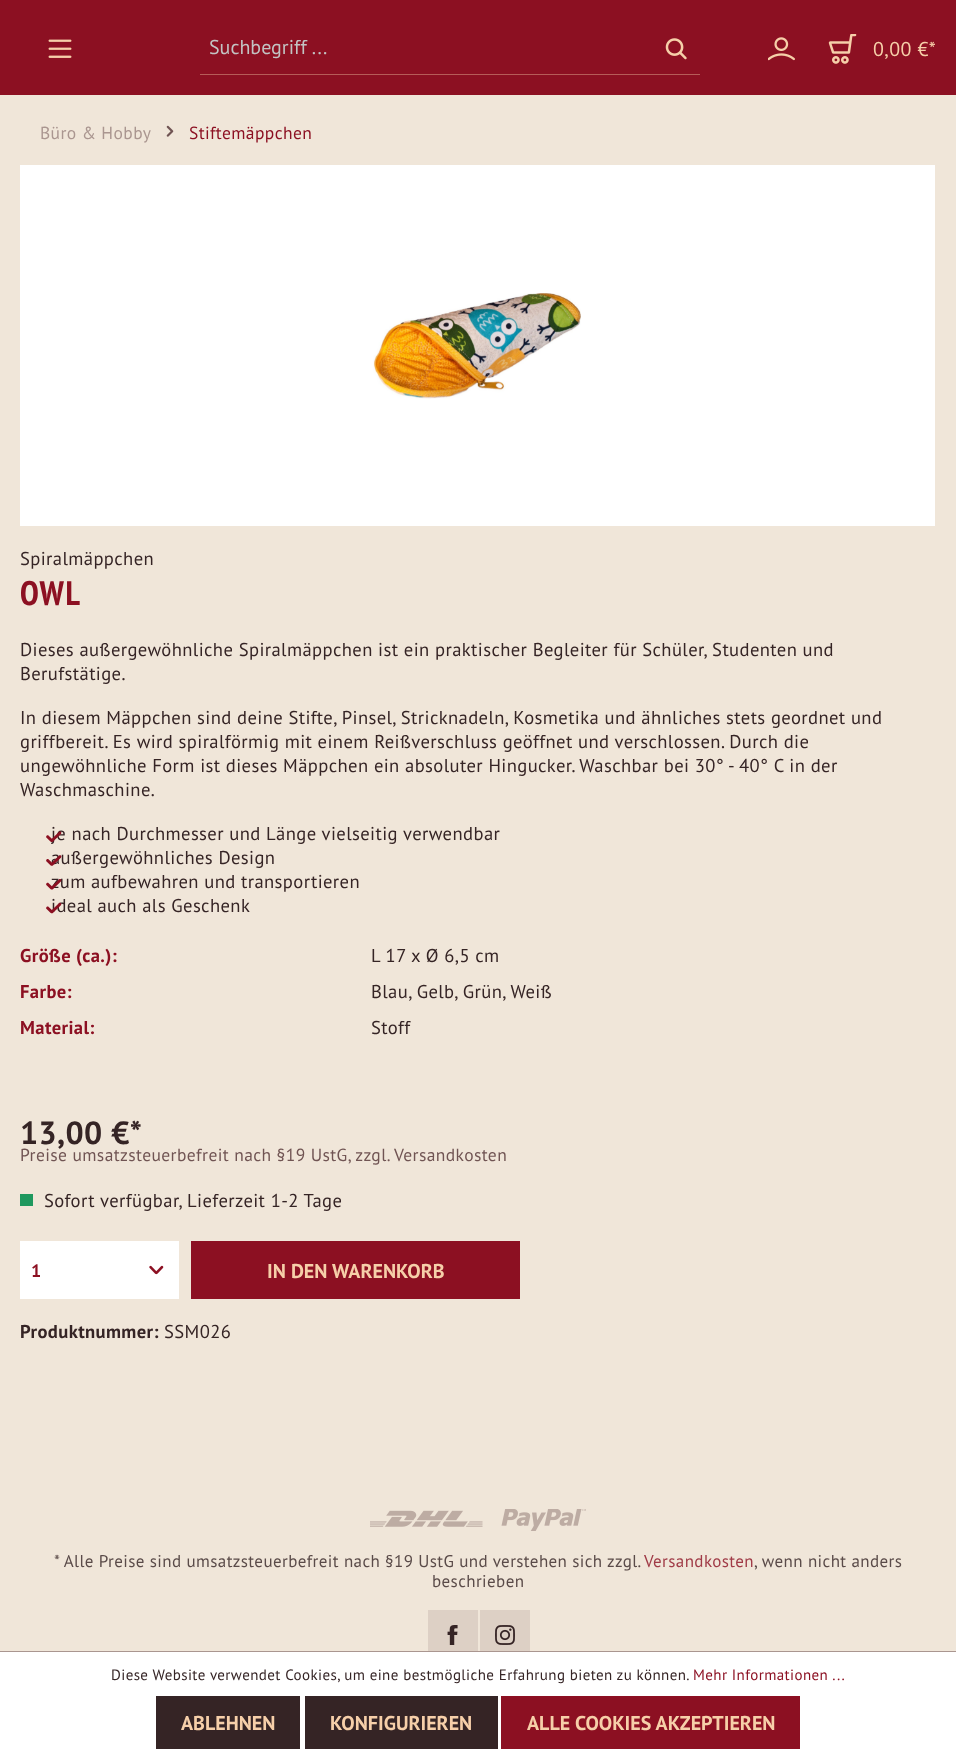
<svg xmlns="http://www.w3.org/2000/svg" width="956" height="1758" viewBox="0 0 956 1758">
  <rect width="100%" height="100%" fill="rgb(240,230,217)"/>
  <rect x="0" y="0" width="956" height="95" fill="rgb(140,16,34)"/>
  <image x="48" y="39" width="24" height="19" href="pic1.png"/>
  <rect x="200" y="74" width="500" height="1" fill="rgb(182,92,88)"/>
  <text x="209" y="54" font-family="PT Sans" font-size="20" fill="rgb(195,195,195)">Suchbegriff ...</text>
  <image x="665" y="38" width="22" height="22" href="pic2.png"/>
  <image x="768" y="37" width="27" height="24" href="pic3.png"/>
  <image x="828" y="34" width="29" height="30" href="pic4.png"/>
  <text x="873" y="56" font-family="PT Sans" font-size="20" letter-spacing="0.4" fill="rgb(246,207,169)">0,00 €*</text>
  <text x="40" y="139" font-family="PT Sans" font-size="17.5" letter-spacing="0.4" fill="rgb(170,150,144)">Büro &amp; Hobby</text>
  <image x="166" y="125" width="8" height="12" href="pic5.png"/>
  <text x="189" y="139" font-family="PT Sans" font-size="17.5" letter-spacing="0.4" fill="rgb(140,16,34)">Stiftemäppchen</text>
  <rect x="20" y="165" width="915" height="361" fill="rgb(255,255,255)"/>
  <image x="373" y="293" width="208" height="106" href="pic6.png"/>
  <text x="20" y="565" font-family="PT Sans" font-size="18.6" letter-spacing="0.4" fill="rgb(53,36,37)">Spiralmäppchen</text>
  <text x="20" y="605" font-family="PT Sans Narrow" font-size="34" font-weight="bold" letter-spacing="1.5" fill="rgb(140,16,34)">OWL</text>
  <g font-family="PT Sans" font-size="18.6" letter-spacing="0.4" fill="rgb(53,36,37)">
    <text>
      <tspan x="20" y="656">Dieses außergewöhnliche Spiralmäppchen ist ein praktischer Begleiter für Schüler, Studenten und</tspan>
      <tspan x="20" y="680">Berufstätige.</tspan>
    </text>
    <text>
      <tspan x="20" y="724">In diesem Mäppchen sind deine Stifte, Pinsel, Stricknadeln, Kosmetika und ähnliches stets geordnet und</tspan>
      <tspan x="20" y="748">griffbereit. Es wird spiralförmig mit einem Reißverschluss geöffnet und verschlossen. Durch die</tspan>
      <tspan x="20" y="772">ungewöhnliche Form ist dieses Mäppchen ein absoluter Hingucker. Waschbar bei 30° - 40° C in der</tspan>
      <tspan x="20" y="796">Waschmaschine.</tspan>
    </text>
    <text x="51" y="840">je nach Durchmesser und Länge vielseitig verwendbar</text>
  </g>
  <image x="46" y="831" width="16" height="11" href="pic7.png"/>
  <text x="51" y="864" font-family="PT Sans" font-size="18.6" letter-spacing="0.4" fill="rgb(53,36,37)">außergewöhnliches Design</text>
  <image x="46" y="855" width="16" height="11" href="pic8.png"/>
  <text x="51" y="888" font-family="PT Sans" font-size="18.6" letter-spacing="0.4" fill="rgb(53,36,37)">zum aufbewahren und transportieren</text>
  <image x="46" y="879" width="16" height="11" href="pic9.png"/>
  <text x="51" y="912" font-family="PT Sans" font-size="18.6" letter-spacing="0.4" fill="rgb(53,36,37)">ideal auch als Geschenk</text>
  <image x="46" y="902" width="16" height="12" href="pic10.png"/>
  <text x="20" y="962" font-family="PT Sans" font-size="18.6" font-weight="bold" letter-spacing="0.4" fill="rgb(140,16,34)">Größe (ca.):</text>
  <text x="371" y="962" font-family="PT Sans" font-size="18.6" letter-spacing="0.4" fill="rgb(53,36,37)">L 17 x Ø 6,5 cm</text>
  <text x="20" y="998" font-family="PT Sans" font-size="18.6" font-weight="bold" letter-spacing="0.4" fill="rgb(140,16,34)">Farbe:</text>
  <text x="371" y="998" font-family="PT Sans" font-size="18.6" letter-spacing="0.4" fill="rgb(53,36,37)">Blau, Gelb, Grün, Weiß</text>
  <text x="20" y="1034" font-family="PT Sans" font-size="18.6" font-weight="bold" letter-spacing="0.4" fill="rgb(140,16,34)">Material:</text>
  <text x="371" y="1034" font-family="PT Sans" font-size="18.6" letter-spacing="0.4" fill="rgb(53,36,37)">Stoff</text>
  <text x="20" y="1144" font-family="PT Sans" font-size="32" font-weight="bold" letter-spacing="0.4" fill="rgb(53,36,37)">13,00 €*</text>
  <text x="20" y="1161" font-family="PT Sans" font-size="17.5" letter-spacing="0.4" fill="rgb(112,84,83)">Preise umsatzsteuerbefreit nach §19 UstG, zzgl. Versandkosten</text>
  <rect x="20" y="1194" width="13" height="12" fill="rgb(31,152,94)"/>
  <text x="44" y="1207" font-family="PT Sans" font-size="18.6" letter-spacing="0.4" fill="rgb(53,36,37)">Sofort verfügbar, Lieferzeit 1-2 Tage</text>
  <rect x="20" y="1241" width="159" height="58" fill="rgb(255,255,255)"/>
  <image x="149" y="1265" width="15" height="10" href="pic11.png"/>
  <text x="31" y="1277" font-family="PT Sans" font-size="18" font-weight="bold" fill="rgb(140,16,34)">1</text>
  <rect x="191" y="1241" width="329" height="58" fill="rgb(140,16,34)"/>
  <text x="267" y="1278" font-family="PT Sans" font-size="20" font-weight="bold" fill="rgb(246,207,169)">IN DEN WARENKORB</text>
  <text x="20" y="1338" font-family="PT Sans" font-size="18.6" font-weight="bold" letter-spacing="0.4" fill="rgb(53,36,37)">Produktnummer:</text>
  <text x="164" y="1338" font-family="PT Sans" font-size="18.6" letter-spacing="0.4" fill="rgb(53,36,37)">SSM026</text>
  <image x="370" y="1510" width="113" height="17" href="pic12.png"/>
  <image x="501" y="1509" width="85" height="22" href="pic13.png"/>
  <text x="54" y="1567" font-family="PT Sans" font-size="17" letter-spacing="0.4" fill="rgb(90,75,73)">* Alle Preise sind umsatzsteuerbefreit nach §19 UstG und verstehen sich zzgl.</text>
  <text x="644" y="1567" font-family="PT Sans" font-size="17" letter-spacing="0.4" fill="rgb(160,59,71)">Versandkosten</text>
  <g font-family="PT Sans" font-size="17" letter-spacing="0.4" fill="rgb(90,75,73)">
    <text x="754" y="1567">, wenn nicht anders</text>
    <text x="432" y="1587">beschrieben</text>
  </g>
  <rect x="428" y="1610" width="50" height="41" fill="rgb(221,208,197)"/>
  <image x="447" y="1625" width="11" height="20" href="pic14.png"/>
  <rect x="480" y="1610" width="50" height="41" fill="rgb(221,208,197)"/>
  <image x="495" y="1625" width="20" height="20" href="pic15.png"/>
  <rect x="0" y="1652" width="956" height="106" fill="rgb(255,255,255)"/>
  <rect x="0" y="1651" width="956" height="1" fill="rgb(170,150,144)"/>
  <text x="111" y="1680" font-family="PT Sans" font-size="15" letter-spacing="0.4" fill="rgb(53,36,37)">Diese Website verwendet Cookies, um eine bestmögliche Erfahrung bieten zu können.</text>
  <text x="693" y="1680" font-family="PT Sans" font-size="15" letter-spacing="0.4" fill="rgb(140,16,34)">Mehr Informationen ...</text>
  <rect x="156" y="1696" width="144" height="53" fill="rgb(53,36,37)"/>
  <text x="181" y="1730" font-family="PT Sans" font-size="20" font-weight="bold" fill="rgb(246,207,169)">ABLEHNEN</text>
  <rect x="305" y="1696" width="193" height="53" fill="rgb(53,36,37)"/>
  <text x="330" y="1730" font-family="PT Sans" font-size="20" font-weight="bold" fill="rgb(246,207,169)">KONFIGURIEREN</text>
  <rect x="501" y="1696" width="299" height="53" fill="rgb(140,16,34)"/>
  <text x="527" y="1730" font-family="PT Sans" font-size="20" font-weight="bold" fill="rgb(246,207,169)">ALLE COOKIES AKZEPTIEREN</text>
</svg>
